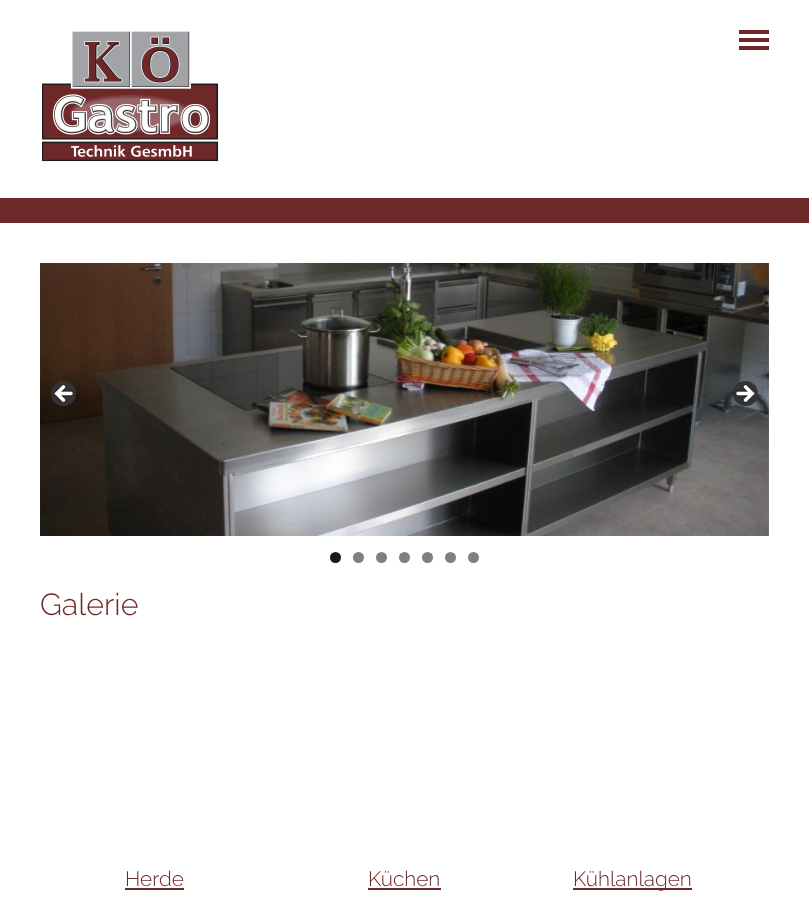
<svg xmlns="http://www.w3.org/2000/svg" width="809" height="911" viewBox="0 0 809 911">
  <rect width="100%" height="100%" fill="rgb(255,255,255)"/>
  <rect x="0" y="198" width="809" height="25" fill="rgb(110,40,42)"/>
  <image x="42" y="31" width="177" height="131" href="pic1.png"/>
  <rect x="739" y="30" width="30" height="4" fill="rgb(110,40,42)"/>
  <rect x="739" y="46" width="30" height="4" fill="rgb(110,40,42)"/>
  <rect x="739" y="38" width="30" height="4" fill="rgb(110,40,42)"/>
  <image x="40" y="263" width="729" height="273" href="pic2.png"/>
  <image x="51" y="381" width="25" height="25" href="pic3.png"/>
  <image x="733" y="381" width="25" height="25" href="pic4.png"/>
  <circle cx="335.5" cy="557.5" r="5.5" fill="rgb(26,26,26)"/>
  <circle cx="358.5" cy="557.5" r="5.5" fill="rgb(128,128,128)"/>
  <circle cx="381.5" cy="557.5" r="5.5" fill="rgb(128,128,128)"/>
  <circle cx="404.5" cy="557.5" r="5.5" fill="rgb(128,128,128)"/>
  <circle cx="427.5" cy="557.5" r="5.5" fill="rgb(128,128,128)"/>
  <circle cx="450.5" cy="557.5" r="5.5" fill="rgb(128,128,128)"/>
  <circle cx="473.5" cy="557.5" r="5.5" fill="rgb(128,128,128)"/>
  <text x="40" y="615" font-family="Raleway" font-size="30.5" font-weight="300" fill="rgb(110,40,42)">Galerie</text>
  <text x="125" y="886" font-family="Raleway" font-size="20.75" font-weight="300" fill="rgb(110,40,42)">Herde</text>
  <rect x="125" y="888" width="59" height="2" fill="rgb(110,40,42)"/>
  <text x="368" y="886" font-family="Raleway" font-size="20.75" font-weight="300" fill="rgb(110,40,42)">Küchen</text>
  <rect x="368" y="888" width="73" height="2" fill="rgb(110,40,42)"/>
  <rect x="573" y="888" width="119" height="2" fill="rgb(110,40,42)"/>
  <text x="573" y="886" font-family="Raleway" font-size="20.75" font-weight="300" fill="rgb(110,40,42)">Kühlanlagen</text>
</svg>
